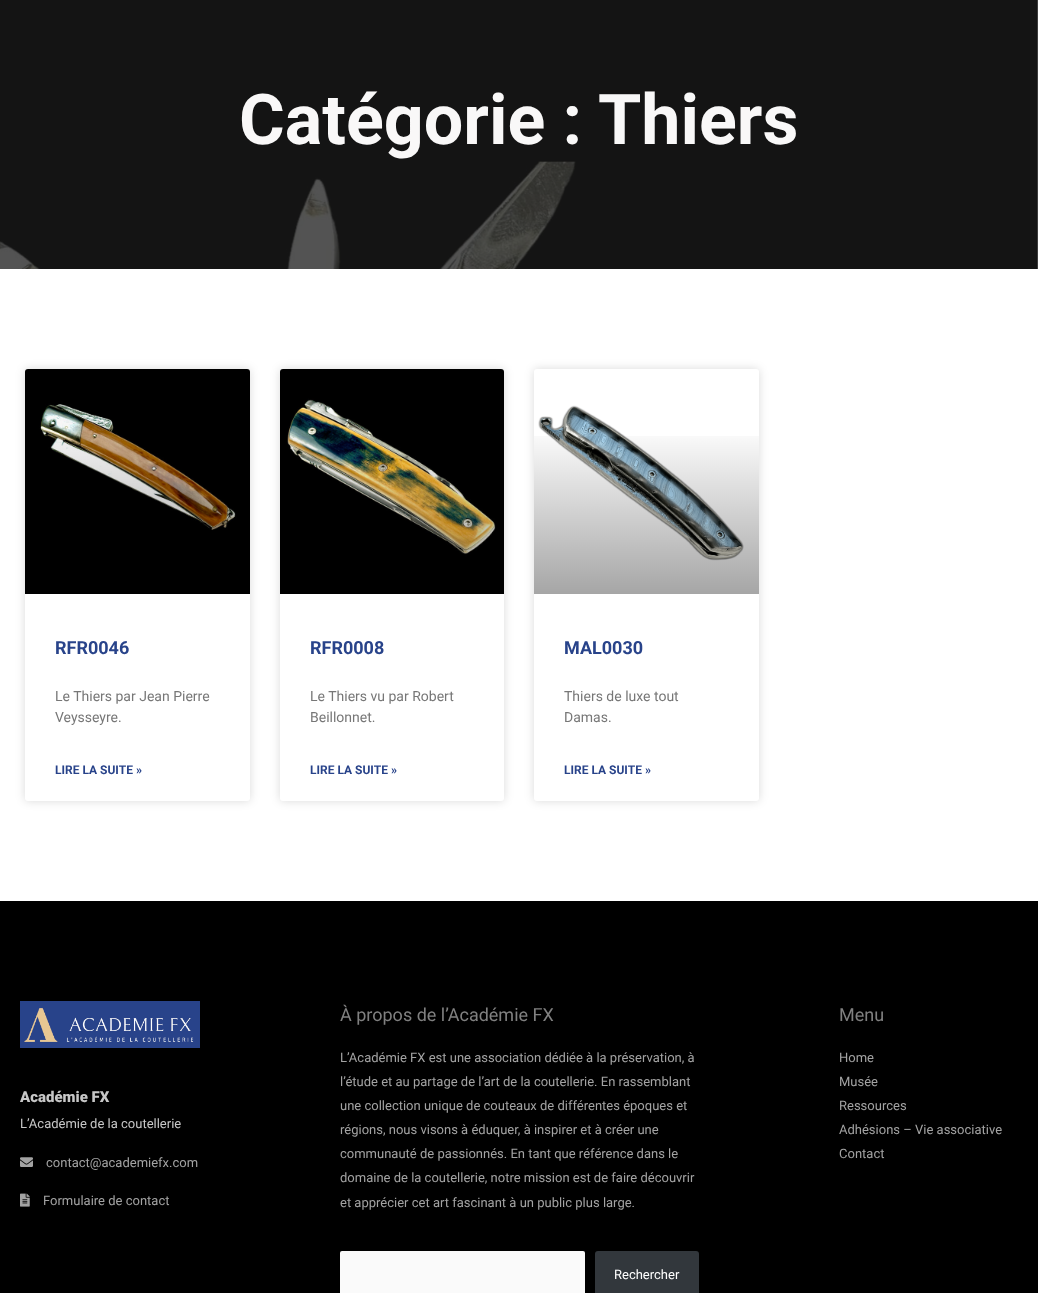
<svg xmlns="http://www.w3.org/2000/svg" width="1038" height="1293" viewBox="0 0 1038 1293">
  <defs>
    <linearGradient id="g1" gradientUnits="userSpaceOnUse" x1="138" y1="594" x2="138" y2="369"><stop offset="0" stop-color="rgb(0,0,0)" stop-opacity="0.35"/><stop offset="0.75" stop-color="rgb(0,0,0)" stop-opacity="0"/></linearGradient>
    <linearGradient id="g2" gradientUnits="userSpaceOnUse" x1="392" y1="594" x2="392" y2="369"><stop offset="0" stop-color="rgb(0,0,0)" stop-opacity="0.35"/><stop offset="0.75" stop-color="rgb(0,0,0)" stop-opacity="0"/></linearGradient>
    <linearGradient id="g3" gradientUnits="userSpaceOnUse" x1="647" y1="594" x2="647" y2="369"><stop offset="0" stop-color="rgb(0,0,0)" stop-opacity="0.35"/><stop offset="0.75" stop-color="rgb(0,0,0)" stop-opacity="0"/></linearGradient>
  </defs>
  <rect width="100%" height="100%" fill="rgb(255,255,255)"/>
  <image x="0" y="0" width="1038" height="269" href="pic1.png"/>
  <text x="239" y="144" font-family="Roboto" font-size="70" font-weight="bold" fill="rgb(249,248,248)">Catégorie : Thiers</text>
  <rect x="25" y="369" width="225" height="432" rx="3" fill="rgba(0,0,0,0.15)" filter="blur(5px)"/>
  <rect x="25" y="369" width="225" height="432" rx="3" fill="rgb(255,255,255)"/>
  <image x="25" y="369" width="225" height="225" href="pic2.png"/>
  <rect x="51" y="436" width="185" height="94" fill="url(#g1)"/>
  <text x="55" y="654" font-family="Roboto" font-size="18" font-weight="bold" fill="rgb(40,67,138)">RFR0046</text>
  <g font-family="Roboto" font-size="14" fill="rgb(119,119,119)">
    <text>
      <tspan x="55" y="701">Le Thiers par Jean Pierre</tspan>
      <tspan x="55" y="722">Veysseyre.</tspan>
    </text>
  </g>
  <text x="55" y="774" font-family="Roboto" font-size="12" font-weight="bold" fill="rgb(40,67,138)">LIRE LA SUITE »</text>
  <rect x="280" y="369" width="224" height="432" rx="3" fill="rgba(0,0,0,0.15)" filter="blur(5px)"/>
  <rect x="280" y="369" width="224" height="432" rx="3" fill="rgb(255,255,255)"/>
  <image x="280" y="369" width="224" height="225" href="pic3.png"/>
  <rect x="288" y="436" width="207" height="118" fill="url(#g2)"/>
  <text x="310" y="654" font-family="Roboto" font-size="18" font-weight="bold" fill="rgb(40,67,138)">RFR0008</text>
  <g font-family="Roboto" font-size="14" fill="rgb(119,119,119)">
    <text>
      <tspan x="310" y="701">Le Thiers vu par Robert</tspan>
      <tspan x="310" y="722">Beillonnet.</tspan>
    </text>
  </g>
  <text x="310" y="774" font-family="Roboto" font-size="12" font-weight="bold" fill="rgb(40,67,138)">LIRE LA SUITE »</text>
  <rect x="534" y="369" width="225" height="432" rx="3" fill="rgba(0,0,0,0.15)" filter="blur(5px)"/>
  <rect x="534" y="369" width="225" height="432" rx="3" fill="rgb(255,255,255)"/>
  <image x="538" y="405" width="206" height="156" href="pic4.png"/>
  <rect x="534" y="436" width="225" height="158" fill="url(#g3)"/>
  <text x="564" y="654" font-family="Roboto" font-size="18" font-weight="bold" fill="rgb(40,67,138)">MAL0030</text>
  <g font-family="Roboto" font-size="14" fill="rgb(119,119,119)">
    <text>
      <tspan x="564" y="701">Thiers de luxe tout</tspan>
      <tspan x="564" y="722">Damas.</tspan>
    </text>
  </g>
  <text x="564" y="774" font-family="Roboto" font-size="12" font-weight="bold" fill="rgb(40,67,138)">LIRE LA SUITE »</text>
  <rect x="0" y="901" width="1038" height="392" fill="rgb(0,0,0)"/>
  <image x="20" y="1001" width="180" height="47" href="pic5.png"/>
  <text x="20" y="1102" font-family="Roboto" font-size="15" font-weight="900" fill="rgb(199,199,199)">Académie FX</text>
  <text x="20" y="1128" font-family="Roboto" font-size="13" fill="rgb(199,199,199)">L’Académie de la coutellerie</text>
  <image x="20" y="1157" width="13" height="10" href="pic6.png"/>
  <text x="46" y="1167" font-family="Roboto" font-size="13" fill="rgb(163,163,163)">contact@academiefx.com</text>
  <image x="20" y="1193" width="10" height="14" href="pic7.png"/>
  <text x="43" y="1205" font-family="Roboto" font-size="13" fill="rgb(163,163,163)">Formulaire de contact</text>
  <text x="340" y="1021" font-family="Roboto" font-size="18" fill="rgb(128,128,128)">À propos de l’Académie FX</text>
  <g font-family="Roboto" font-size="13" fill="rgb(163,163,163)">
    <text>
      <tspan x="340" y="1062">L’Académie FX est une association dédiée à la préservation, à</tspan>
      <tspan x="340" y="1086">l’étude et au partage de l’art de la coutellerie. En rassemblant</tspan>
      <tspan x="340" y="1110">une collection unique de couteaux de différentes époques et</tspan>
      <tspan x="340" y="1134">régions, nous visons à éduquer, à inspirer et à créer une</tspan>
      <tspan x="340" y="1158">communauté de passionnés. En tant que référence dans le</tspan>
      <tspan x="340" y="1182">domaine de la coutellerie, notre mission est de faire découvrir</tspan>
      <tspan x="340" y="1207">et apprécier cet art fascinant à un public plus large.</tspan>
    </text>
  </g>
  <rect x="340" y="1251" width="245" height="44" rx="2" fill="rgb(250,250,250)"/>
  <rect x="595" y="1251" width="104" height="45" rx="3" fill="rgb(50,55,60)"/>
  <text x="614" y="1279" font-family="Roboto" font-size="13" fill="rgb(255,255,255)">Rechercher</text>
  <text x="839" y="1021" font-family="Roboto" font-size="18" fill="rgb(128,128,128)">Menu</text>
  <g font-family="Roboto" font-size="13" fill="rgb(163,163,163)">
    <text>
      <tspan x="839" y="1062">Home</tspan>
      <tspan x="839" y="1086">Musée</tspan>
      <tspan x="839" y="1110">Ressources</tspan>
      <tspan x="839" y="1134">Adhésions – Vie associative</tspan>
      <tspan x="839" y="1158">Contact</tspan>
    </text>
  </g>
</svg>
